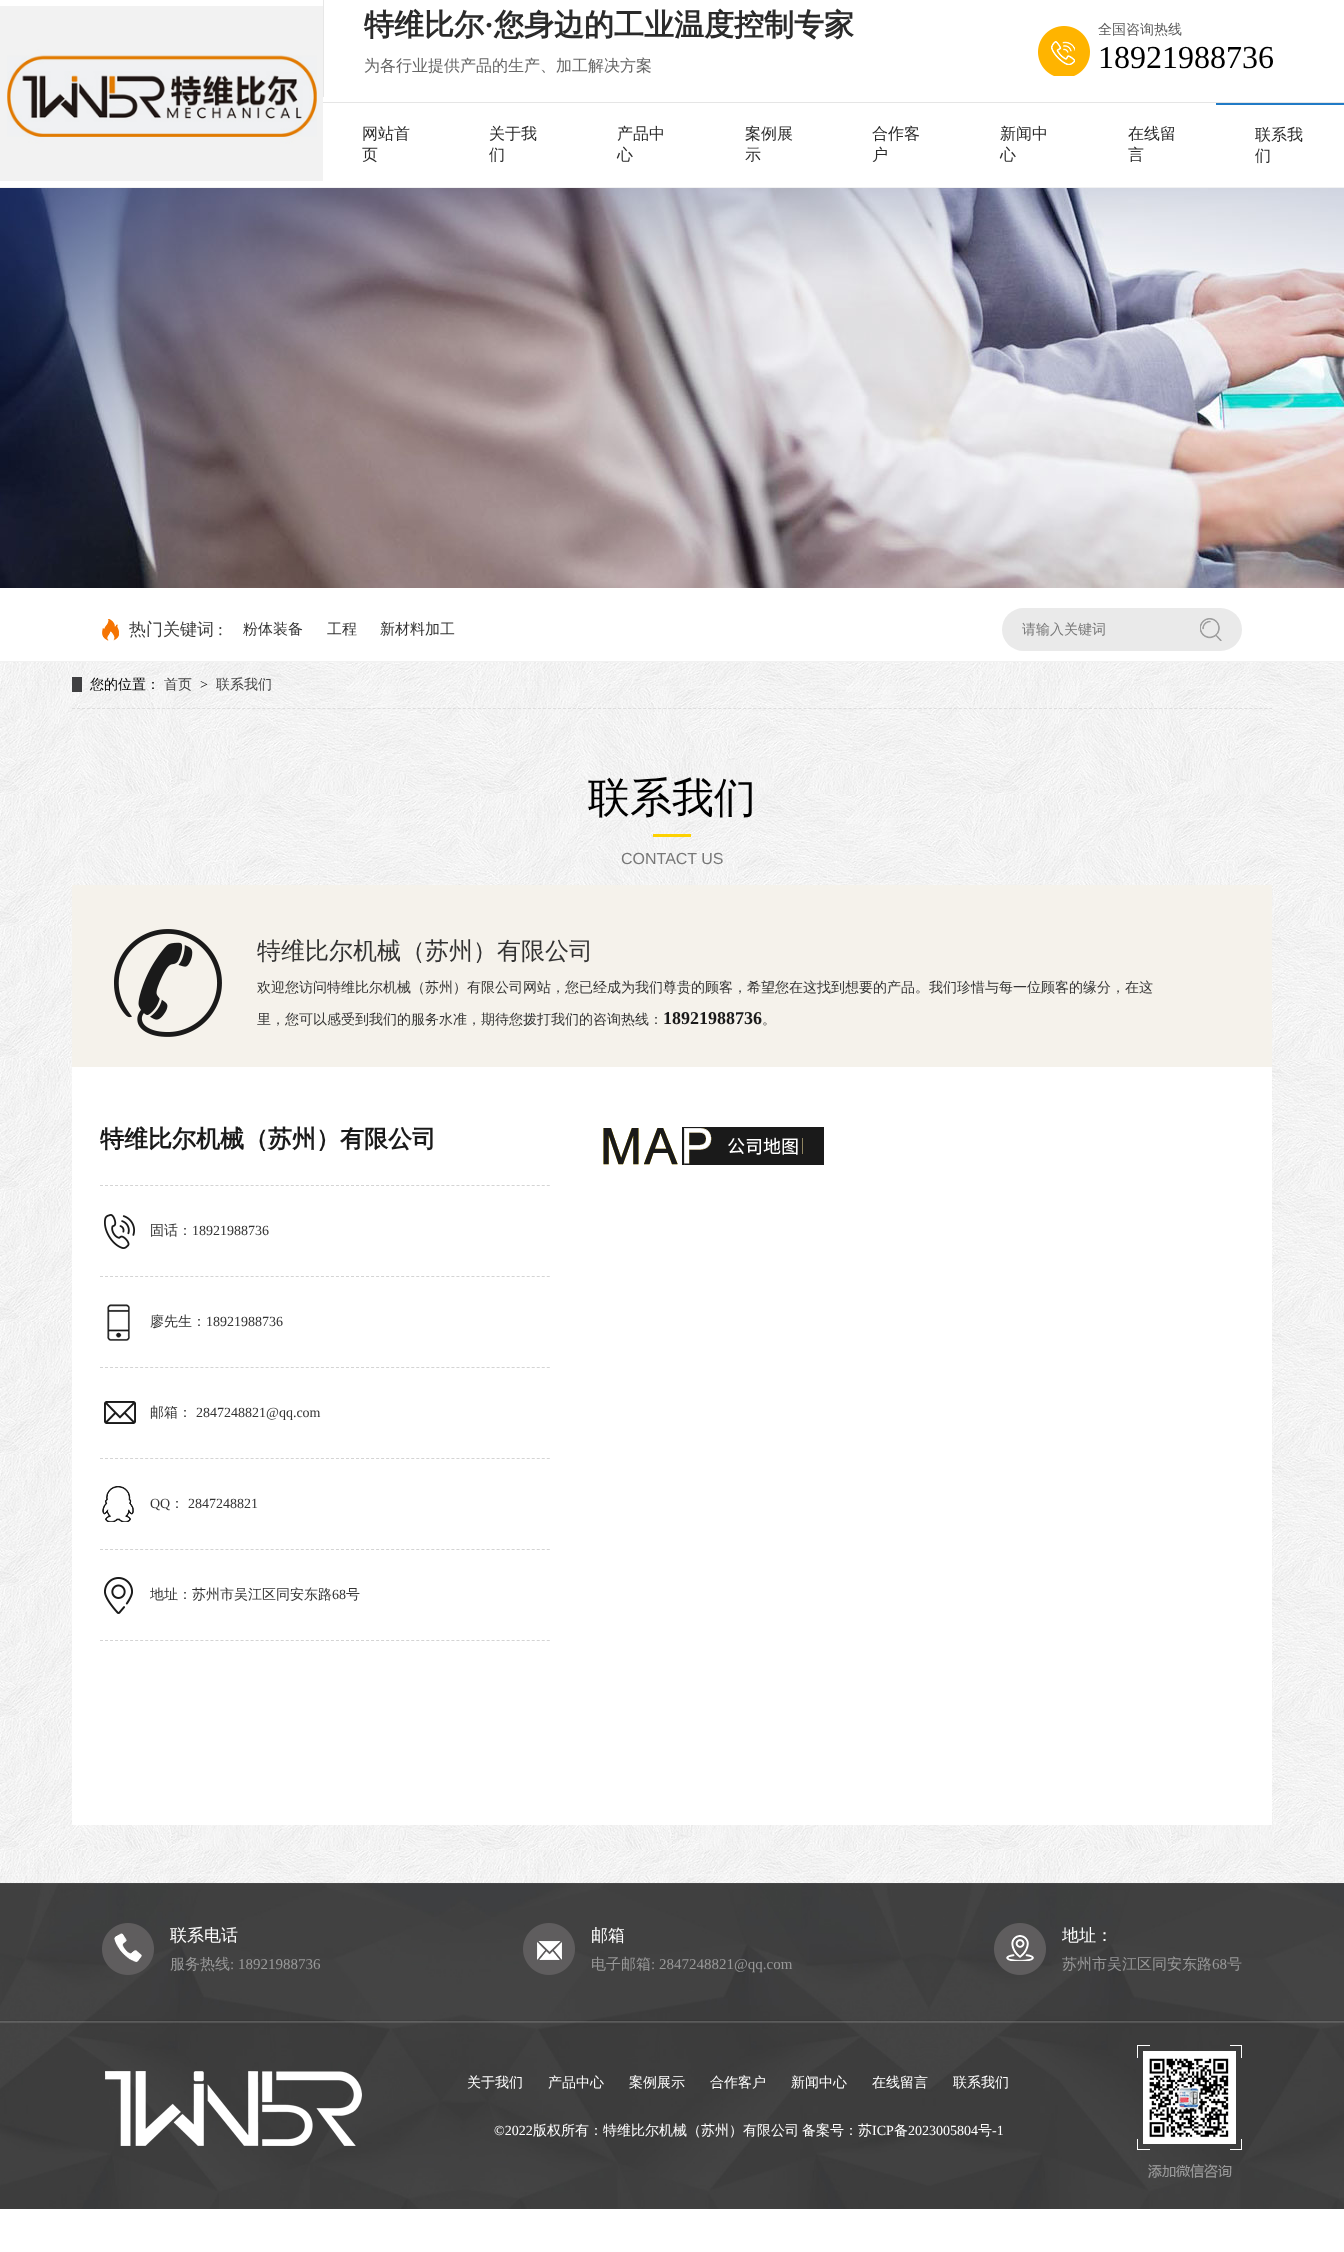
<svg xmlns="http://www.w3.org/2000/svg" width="1344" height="2252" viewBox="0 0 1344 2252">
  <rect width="100%" height="100%" fill="rgb(255,255,255)"/>
  <rect x="0" y="187" width="1344" height="1" fill="rgb(242,242,242)"/>
  <image x="0" y="6" width="323" height="175" href="pic1.png"/>
  <rect x="323" y="0" width="1" height="97" fill="rgb(231,231,231)"/>
  <text x="364" y="35" font-family="WenQuanYi Zen Hei" font-size="30" font-weight="bold" fill="rgb(43,43,43)">特维比尔</text>
  <text x="484" y="35" font-family="Liberation Serif" font-size="30" font-weight="bold" fill="rgb(43,43,43)">·</text>
  <text x="494" y="35" font-family="WenQuanYi Zen Hei" font-size="30" font-weight="bold" fill="rgb(43,43,43)">您身边的工业温度控制专家</text>
  <text x="364" y="71" font-family="WenQuanYi Zen Hei" font-size="16" font-weight="500" fill="rgb(102,102,102)">为各行业提供产品的生产、加工解决方案</text>
  <image x="1038" y="26" width="52" height="50" href="pic2.png"/>
  <text x="1098" y="34" font-family="WenQuanYi Zen Hei" font-size="14" font-weight="500" fill="rgb(91,91,91)">全国咨询热线</text>
  <text x="1098" y="68" font-family="Liberation Serif" font-size="32" fill="rgb(0,0,0)">18921988736</text>
  <rect x="323" y="102" width="1021" height="1" fill="rgb(229,229,229)"/>
  <g font-family="WenQuanYi Zen Hei" font-size="16" font-weight="500" fill="rgb(43,43,43)">
    <text>
      <tspan x="362" y="139">网站首</tspan>
      <tspan x="362" y="160">页</tspan>
    </text>
    <text>
      <tspan x="489" y="139">关于我</tspan>
      <tspan x="489" y="160">们</tspan>
    </text>
    <text>
      <tspan x="617" y="139">产品中</tspan>
      <tspan x="617" y="160">心</tspan>
    </text>
    <text>
      <tspan x="745" y="139">案例展</tspan>
      <tspan x="745" y="160">示</tspan>
    </text>
    <text>
      <tspan x="872" y="139">合作客</tspan>
      <tspan x="872" y="160">户</tspan>
    </text>
    <text>
      <tspan x="1000" y="139">新闻中</tspan>
      <tspan x="1000" y="160">心</tspan>
    </text>
    <text>
      <tspan x="1128" y="139">在线留</tspan>
      <tspan x="1128" y="160">言</tspan>
    </text>
  </g>
  <rect x="1216" y="103" width="128" height="2" fill="rgb(33,123,198)"/>
  <g font-family="WenQuanYi Zen Hei" font-size="16" font-weight="500" fill="rgb(43,43,43)">
    <text>
      <tspan x="1255" y="140">联系我</tspan>
      <tspan x="1255" y="161">们</tspan>
    </text>
  </g>
  <image x="0" y="188" width="1344" height="400" href="pic3.png"/>
  <rect x="0" y="661" width="1344" height="1" fill="rgb(242,242,242)"/>
  <image x="102" y="619" width="17" height="22" href="pic4.png"/>
  <text x="129" y="635" font-family="WenQuanYi Zen Hei" font-size="17" font-weight="500" fill="rgb(60,60,60)">热门关键词</text>
  <text x="218" y="635" font-family="Liberation Serif" font-size="17" fill="rgb(60,60,60)">:</text>
  <g font-family="WenQuanYi Zen Hei" font-size="15" font-weight="500" fill="rgb(51,51,51)">
    <text x="243" y="634">粉体装备</text>
    <text x="327" y="634">工程</text>
    <text x="380" y="634">新材料加工</text>
  </g>
  <rect x="1002" y="608" width="240" height="43" rx="21.5" fill="rgb(234,234,234)"/>
  <text x="1022" y="634" font-family="WenQuanYi Zen Hei" font-size="14" font-weight="500" fill="rgb(119,119,119)">请输入关键词</text>
  <image x="1200" y="618" width="22" height="23" href="pic5.png"/>
  <image x="0" y="662" width="1344" height="1221" href="pic6.png"/>
  <path d="M72 708.5H1272" fill="none" stroke="rgb(220,220,220)" stroke-dasharray="3 2.01"/>
  <text x="90" y="689" font-family="WenQuanYi Zen Hei" font-size="14" font-weight="500" fill="rgb(0,0,0)">您的位置：</text>
  <rect x="72" y="677" width="10" height="15" fill="rgb(64,64,66)"/>
  <text x="164" y="689" font-family="WenQuanYi Zen Hei" font-size="14" font-weight="500" fill="rgb(68,68,68)">首页</text>
  <text x="200" y="689" font-family="Liberation Serif" font-size="14" fill="rgb(0,0,0)">&gt;</text>
  <text x="216" y="689" font-family="WenQuanYi Zen Hei" font-size="14" font-weight="500" fill="rgb(68,68,68)">联系我们</text>
  <text x="588" y="812" font-family="WenQuanYi Zen Hei" font-size="42" font-weight="500" fill="rgb(0,0,0)">联系我们</text>
  <rect x="653" y="834" width="38" height="3" fill="rgb(253,209,0)"/>
  <text x="621" y="864" font-family="Liberation Sans" font-size="16" fill="rgb(119,119,119)">CONTACT US</text>
  <rect x="72" y="885" width="1200" height="182" fill="rgb(245,242,235)"/>
  <image x="114" y="929" width="108" height="108" href="pic7.png"/>
  <text x="257" y="959" font-family="WenQuanYi Zen Hei" font-size="24" font-weight="500" fill="rgb(51,51,51)">特维比尔机械（苏州）有限公司</text>
  <g font-family="WenQuanYi Zen Hei" font-size="14" font-weight="500" fill="rgb(51,51,51)">
    <text x="257" y="992">欢迎您访问特维比尔机械（苏州）有限公司网站，您已经成为我们尊贵的顾客，希望您在这找到想要的产品。我们珍惜与每一位顾客的缘分，在这</text>
    <text x="257" y="1024">里，您可以感受到我们的服务水准，期待您拨打我们的咨询热线：</text>
  </g>
  <text x="663" y="1024" font-family="Liberation Serif" font-size="18" font-weight="bold" fill="rgb(26,26,26)">18921988736</text>
  <text x="762" y="1024" font-family="WenQuanYi Zen Hei" font-size="14" font-weight="500" fill="rgb(51,51,51)">。</text>
  <rect x="72" y="1067" width="1200" height="758" fill="rgb(255,255,255)"/>
  <path d="M100 1185.5H550" fill="none" stroke="rgb(212,212,212)" stroke-dasharray="3 2.02"/>
  <text x="100" y="1147" font-family="WenQuanYi Zen Hei" font-size="24" font-weight="bold" fill="rgb(26,26,26)">特维比尔机械（苏州）有限公司</text>
  <path d="M100 1276.5H550" fill="none" stroke="rgb(212,212,212)" stroke-dasharray="3 2.02"/>
  <image x="104" y="1214" width="31" height="35" href="pic8.png"/>
  <text x="150" y="1235" font-family="WenQuanYi Zen Hei" font-size="14" font-weight="500" fill="rgb(51,51,51)">固话：</text>
  <text x="192" y="1235" font-family="Liberation Serif" font-size="14" fill="rgb(51,51,51)">18921988736</text>
  <path d="M100 1367.5H550" fill="none" stroke="rgb(212,212,212)" stroke-dasharray="3 2.02"/>
  <image x="107" y="1304" width="23" height="37" href="pic9.png"/>
  <text x="150" y="1326" font-family="WenQuanYi Zen Hei" font-size="14" font-weight="500" fill="rgb(51,51,51)">廖先生：</text>
  <text x="206" y="1326" font-family="Liberation Serif" font-size="14" fill="rgb(51,51,51)">18921988736</text>
  <path d="M100 1458.5H550" fill="none" stroke="rgb(212,212,212)" stroke-dasharray="3 2.02"/>
  <image x="104" y="1401" width="32" height="23" href="pic10.png"/>
  <text x="150" y="1417" font-family="WenQuanYi Zen Hei" font-size="14" font-weight="500" fill="rgb(51,51,51)">邮箱：</text>
  <text x="196" y="1417" font-family="Liberation Serif" font-size="14" fill="rgb(51,51,51)">2847248821@qq.com</text>
  <path d="M100 1549.5H550" fill="none" stroke="rgb(212,212,212)" stroke-dasharray="3 2.02"/>
  <image x="102" y="1486" width="32" height="36" href="pic11.png"/>
  <text x="150" y="1508" font-family="Liberation Serif" font-size="14" fill="rgb(51,51,51)">QQ</text>
  <text x="170" y="1508" font-family="WenQuanYi Zen Hei" font-size="14" font-weight="500" fill="rgb(51,51,51)">：</text>
  <text x="188" y="1508" font-family="Liberation Serif" font-size="14" fill="rgb(51,51,51)">2847248821</text>
  <path d="M100 1640.5H550" fill="none" stroke="rgb(212,212,212)" stroke-dasharray="3 2.02"/>
  <image x="104" y="1577" width="29" height="37" href="pic12.png"/>
  <text x="150" y="1599" font-family="WenQuanYi Zen Hei" font-size="14" font-weight="500" fill="rgb(51,51,51)">地址：苏州市吴江区同安东路</text>
  <text x="332" y="1599" font-family="Liberation Serif" font-size="14" fill="rgb(51,51,51)">68</text>
  <text x="346" y="1599" font-family="WenQuanYi Zen Hei" font-size="14" font-weight="500" fill="rgb(51,51,51)">号</text>
  <image x="603" y="1127" width="221" height="38" href="pic13.png"/>
  <image x="0" y="1883" width="1344" height="326" href="pic14.png"/>
  <image x="102" y="1923" width="52" height="52" href="pic15.png"/>
  <text x="170" y="1941" font-family="WenQuanYi Zen Hei" font-size="17" font-weight="500" fill="rgb(255,255,255)">联系电话</text>
  <text x="170" y="1969" font-family="WenQuanYi Zen Hei" font-size="15" font-weight="500" fill="rgb(153,153,153)">服务热线</text>
  <text x="230" y="1969" font-family="Liberation Serif" font-size="15" fill="rgb(153,153,153)">: 18921988736</text>
  <image x="523" y="1923" width="52" height="52" href="pic16.png"/>
  <text x="591" y="1941" font-family="WenQuanYi Zen Hei" font-size="17" font-weight="500" fill="rgb(255,255,255)">邮箱</text>
  <text x="591" y="1969" font-family="WenQuanYi Zen Hei" font-size="15" font-weight="500" fill="rgb(153,153,153)">电子邮箱</text>
  <text x="651" y="1969" font-family="Liberation Serif" font-size="15" fill="rgb(153,153,153)">: 2847248821@qq.com</text>
  <image x="994" y="1923" width="52" height="52" href="pic17.png"/>
  <text x="1062" y="1941" font-family="WenQuanYi Zen Hei" font-size="17" font-weight="500" fill="rgb(255,255,255)">地址：</text>
  <text x="1062" y="1969" font-family="WenQuanYi Zen Hei" font-size="15" font-weight="500" fill="rgb(153,153,153)">苏州市吴江区同安东路</text>
  <text x="1212" y="1969" font-family="Liberation Serif" font-size="15" fill="rgb(153,153,153)">68</text>
  <text x="1227" y="1969" font-family="WenQuanYi Zen Hei" font-size="15" font-weight="500" fill="rgb(153,153,153)">号</text>
  <image x="105" y="2071" width="257" height="75" href="pic18.png"/>
  <g font-family="WenQuanYi Zen Hei" font-size="14" font-weight="500" fill="rgb(255,255,255)">
    <text x="467" y="2087">关于我们</text>
    <text x="548" y="2087">产品中心</text>
    <text x="629" y="2087">案例展示</text>
    <text x="710" y="2087">合作客户</text>
    <text x="791" y="2087">新闻中心</text>
    <text x="872" y="2087">在线留言</text>
    <text x="953" y="2087">联系我们</text>
  </g>
  <text x="494" y="2135" font-family="Liberation Serif" font-size="14" fill="rgb(255,255,255)">©2022</text>
  <g font-family="WenQuanYi Zen Hei" font-size="14" font-weight="500" fill="rgb(255,255,255)">
    <text x="533" y="2135">版权所有：特维比尔机械（苏州）有限公司</text>
    <text x="802" y="2135">备案号：苏</text>
  </g>
  <text x="872" y="2135" font-family="Liberation Serif" font-size="14" fill="rgb(255,255,255)">ICP</text>
  <text x="894" y="2135" font-family="WenQuanYi Zen Hei" font-size="14" font-weight="500" fill="rgb(255,255,255)">备</text>
  <text x="908" y="2135" font-family="Liberation Serif" font-size="14" fill="rgb(255,255,255)">2023005804</text>
  <text x="978" y="2135" font-family="WenQuanYi Zen Hei" font-size="14" font-weight="500" fill="rgb(255,255,255)">号</text>
  <text x="992" y="2135" font-family="Liberation Serif" font-size="14" fill="rgb(255,255,255)">-1</text>
  <image x="1137" y="2045" width="105" height="134" href="pic19.png"/>
</svg>
